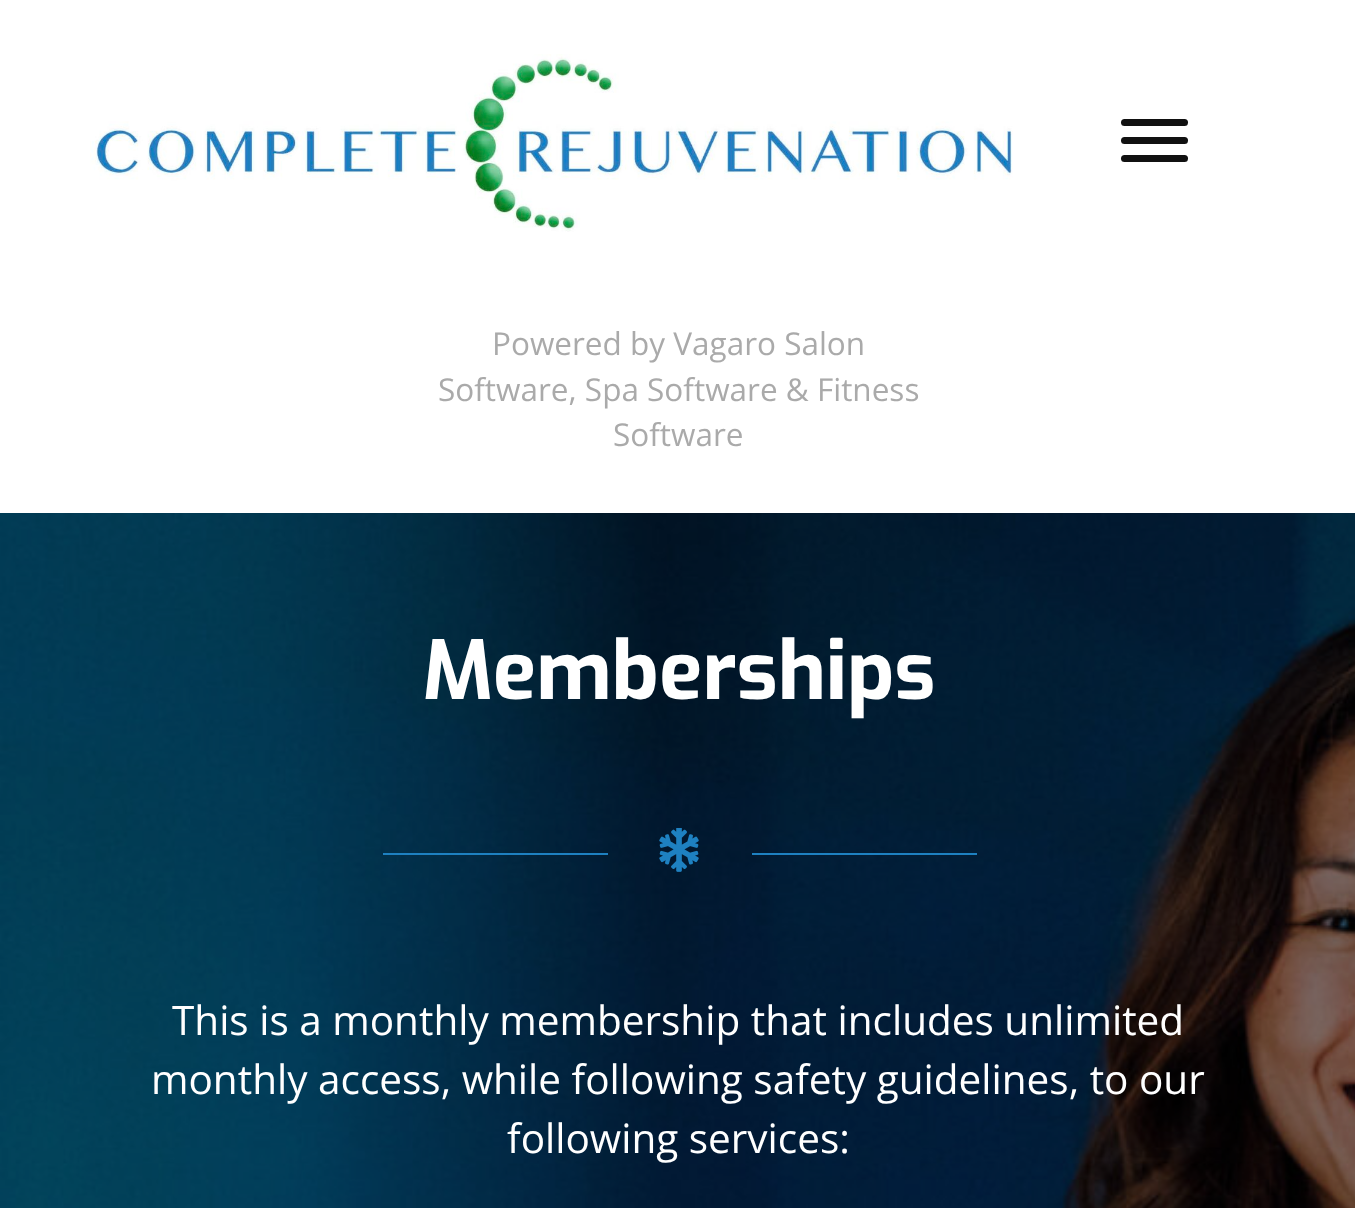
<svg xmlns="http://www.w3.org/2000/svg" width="1355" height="1208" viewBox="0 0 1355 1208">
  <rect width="100%" height="100%" fill="rgb(255,255,255)"/>
  <image x="90" y="54" width="923" height="178" href="pic1.png"/>
  <rect x="1121" y="137" width="67" height="7" rx="3.5" fill="rgb(17,17,17)"/>
  <rect x="1121" y="119" width="67" height="7" rx="3.5" fill="rgb(17,17,17)"/>
  <rect x="1121" y="155" width="67" height="7" rx="3.5" fill="rgb(17,17,17)"/>
  <g font-family="Open Sans" font-size="31.5" fill="rgb(170,170,170)">
    <text x="492" y="355">Powered by Vagaro Salon</text>
    <text x="438" y="401">Software, Spa Software &amp; Fitness</text>
    <text x="613" y="446">Software</text>
  </g>
  <image x="0" y="513" width="1355" height="695" href="pic2.png"/>
  <text x="422" y="699" font-family="Exo" font-size="81" font-weight="bold" fill="rgb(255,255,255)">Memberships</text>
  <rect x="383" y="853" width="225" height="2" fill="rgb(30,129,193)"/>
  <image x="659" y="828" width="40" height="44" href="pic3.png"/>
  <rect x="752" y="853" width="225" height="2" fill="rgb(30,129,193)"/>
  <g font-family="Open Sans" font-size="40.5" fill="rgb(255,255,255)">
    <text x="172" y="1035">This is a monthly membership that includes unlimited</text>
    <text x="151" y="1094">monthly access, while following safety guidelines, to our</text>
    <text x="507" y="1153">following services:</text>
  </g>
</svg>
